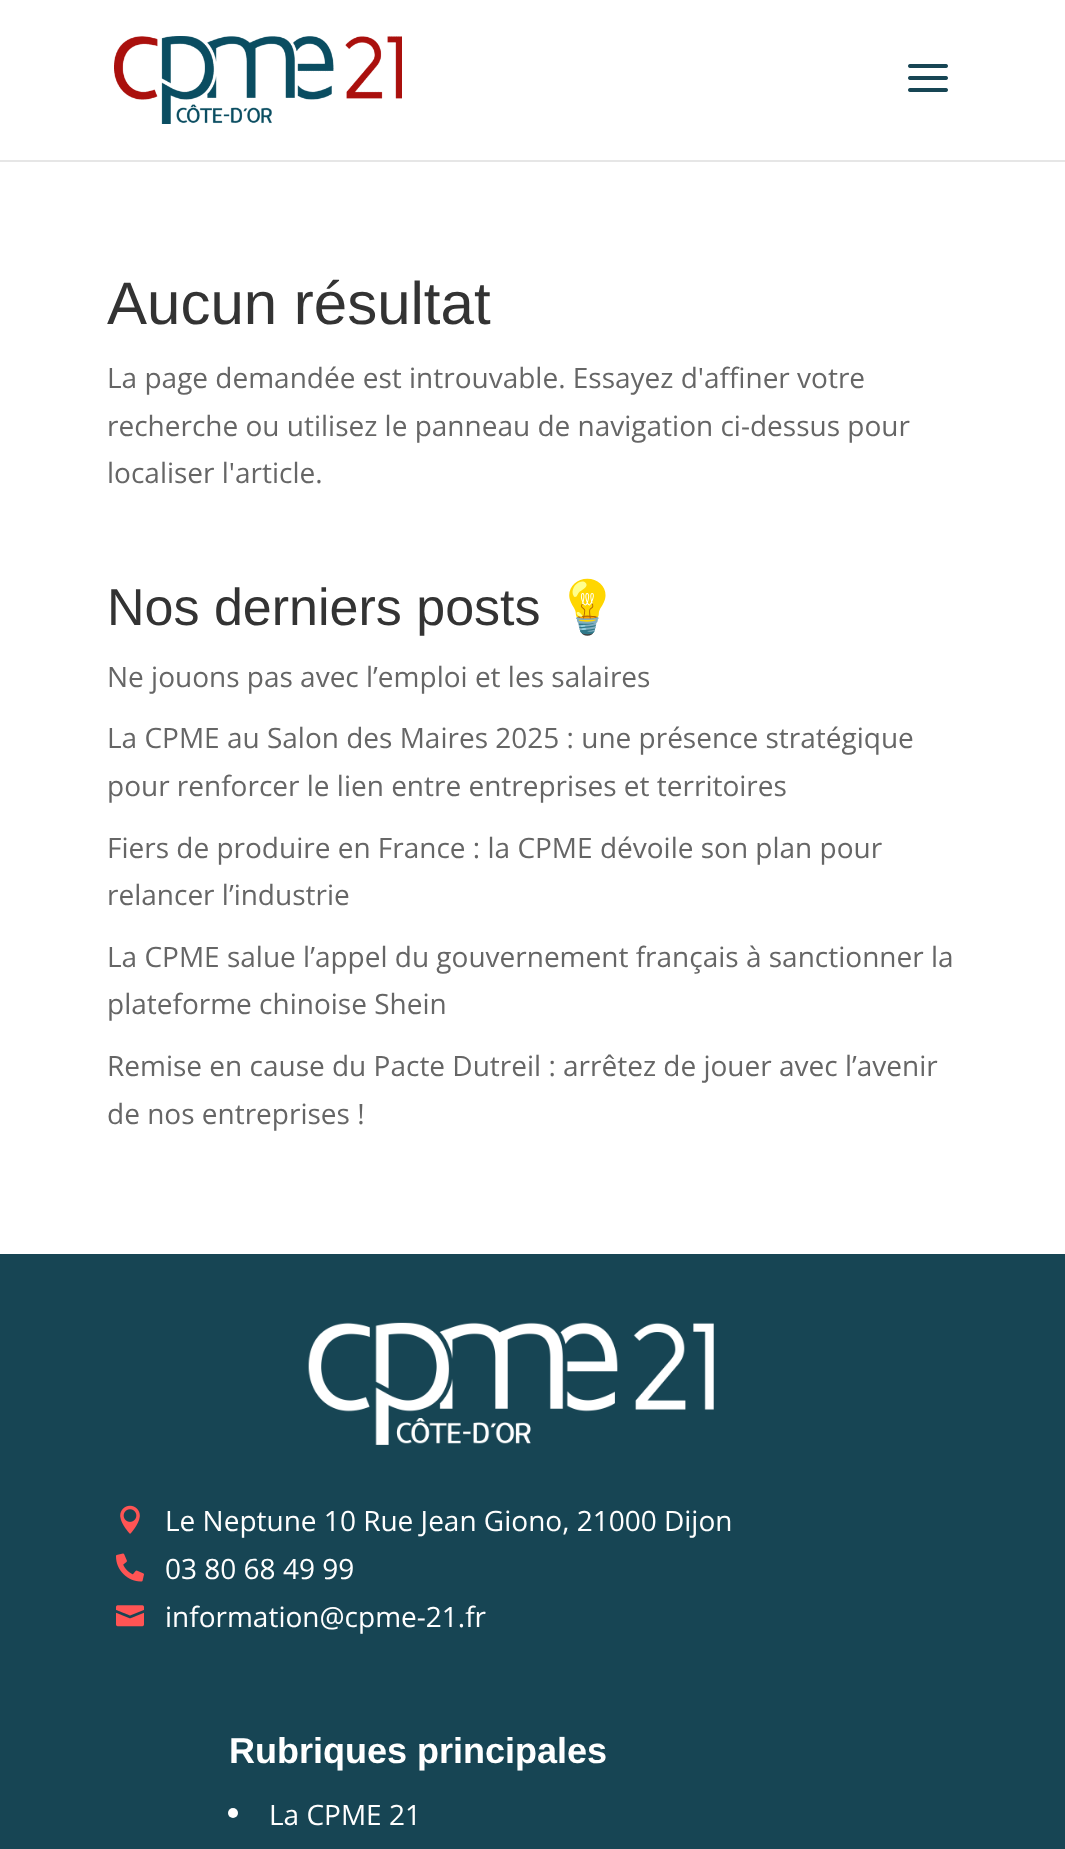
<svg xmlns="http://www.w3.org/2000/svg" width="1065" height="1849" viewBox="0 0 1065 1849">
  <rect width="100%" height="100%" fill="rgb(255,255,255)"/>
  <rect x="0" y="160" width="1065" height="2" fill="rgb(230,230,230)"/>
  <image x="114" y="36" width="288" height="88" href="pic1.png"/>
  <image x="908" y="64" width="40" height="28" href="pic2.png"/>
  <text x="107" y="324" font-family="Liberation Sans" font-size="60" fill="rgb(51,51,51)">Aucun résultat</text>
  <g font-family="Open Sans" font-size="28" fill="rgb(102,102,102)">
    <text>
      <tspan x="107" y="388">La page demandée est introuvable. Essayez d'affiner votre</tspan>
      <tspan x="107" y="436">recherche ou utilisez le panneau de navigation ci-dessus pour</tspan>
      <tspan x="107" y="483">localiser l'article.</tspan>
    </text>
  </g>
  <text x="107" y="625" font-family="Liberation Sans" font-size="52" fill="rgb(51,51,51)">Nos derniers posts</text>
  <text x="555" y="625" font-family="Noto Color Emoji" font-size="52" fill="rgb(51,51,51)">💡</text>
  <g font-family="Open Sans" font-size="28" fill="rgb(102,102,102)">
    <text x="107" y="687">Ne jouons pas avec l’emploi et les salaires</text>
    <text>
      <tspan x="107" y="748">La CPME au Salon des Maires 2025 : une présence stratégique</tspan>
      <tspan x="107" y="796">pour renforcer le lien entre entreprises et territoires</tspan>
    </text>
    <text>
      <tspan x="107" y="858">Fiers de produire en France : la CPME dévoile son plan pour</tspan>
      <tspan x="107" y="905">relancer l’industrie</tspan>
    </text>
    <text>
      <tspan x="107" y="967">La CPME salue l’appel du gouvernement français à sanctionner la</tspan>
      <tspan x="107" y="1014">plateforme chinoise Shein</tspan>
    </text>
    <text>
      <tspan x="107" y="1076">Remise en cause du Pacte Dutreil : arrêtez de jouer avec l’avenir</tspan>
      <tspan x="107" y="1124">de nos entreprises !</tspan>
    </text>
  </g>
  <rect x="0" y="1254" width="1065" height="595" fill="rgb(23,69,84)"/>
  <image x="308" y="1322" width="406" height="123" href="pic3.png"/>
  <image x="120" y="1505" width="20" height="29" href="pic4.png"/>
  <text x="165" y="1531" font-family="Open Sans" font-size="28" fill="rgb(255,255,255)">Le Neptune 10 Rue Jean Giono, 21000 Dijon</text>
  <image x="116" y="1553" width="28" height="29" href="pic5.png"/>
  <text x="165" y="1579" font-family="Open Sans" font-size="28" fill="rgb(255,255,255)">03 80 68 49 99</text>
  <image x="116" y="1605" width="28" height="22" href="pic6.png"/>
  <text x="165" y="1627" font-family="Open Sans" font-size="28" fill="rgb(255,255,255)">information@cpme-21.fr</text>
  <text x="229" y="1763" font-family="Liberation Sans" font-size="36" font-weight="bold" fill="rgb(255,255,255)">Rubriques principales</text>
  <circle cx="233" cy="1813" r="5" fill="rgb(255,255,255)"/>
  <text x="269" y="1825" font-family="Open Sans" font-size="28" fill="rgb(255,255,255)">La CPME 21</text>
</svg>
